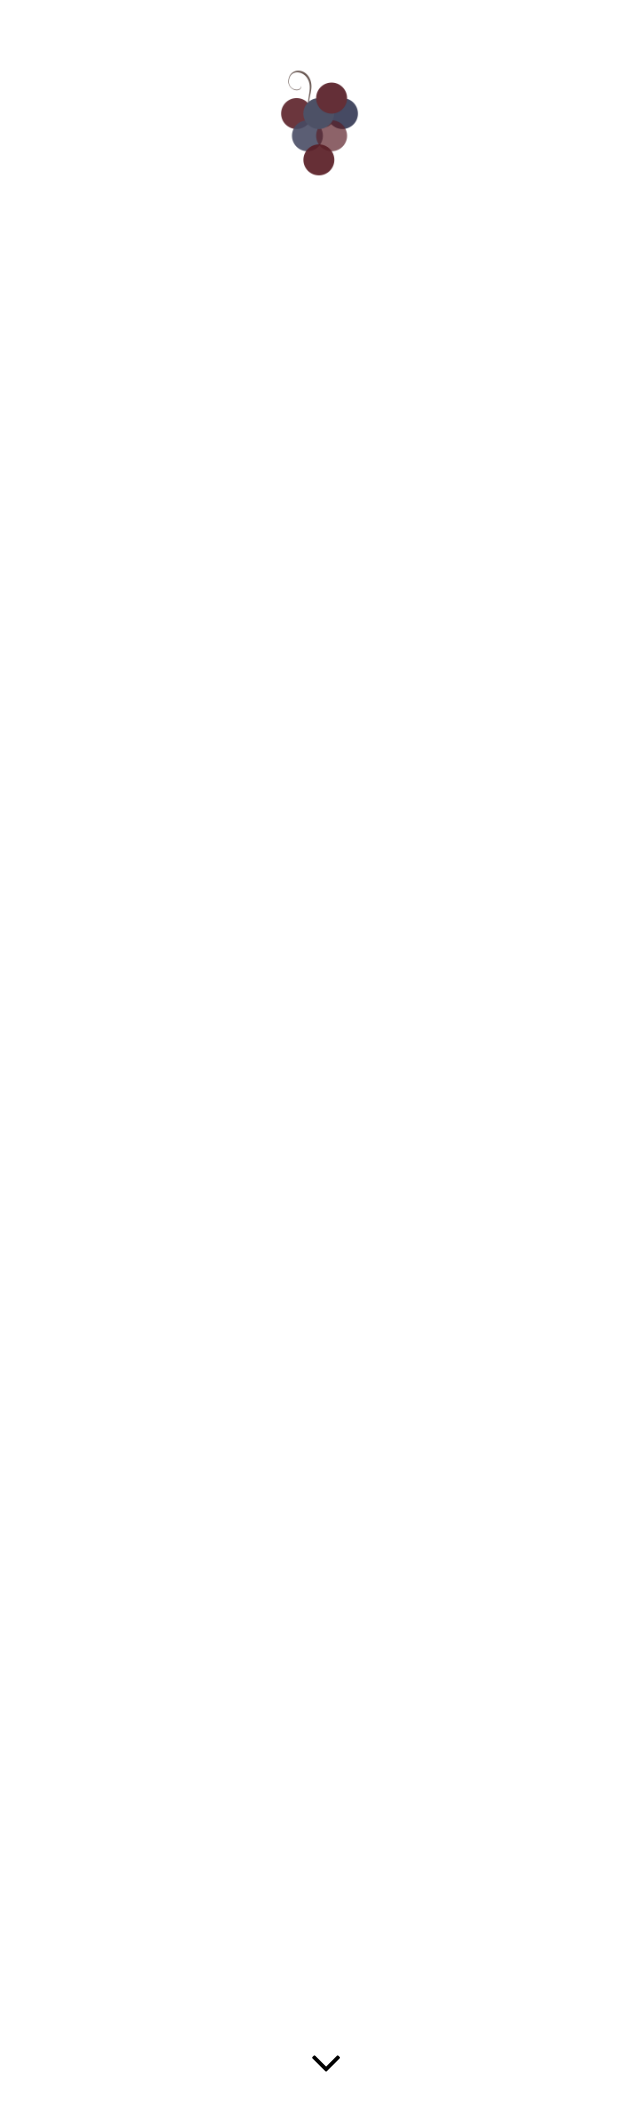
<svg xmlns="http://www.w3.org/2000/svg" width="638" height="2107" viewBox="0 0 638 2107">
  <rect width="100%" height="100%" fill="rgb(255,255,255)"/>
  <image x="280" y="70" width="79" height="106" href="pic1.png"/>
  <image x="312" y="2055" width="28" height="17" href="pic2.png"/>
</svg>
